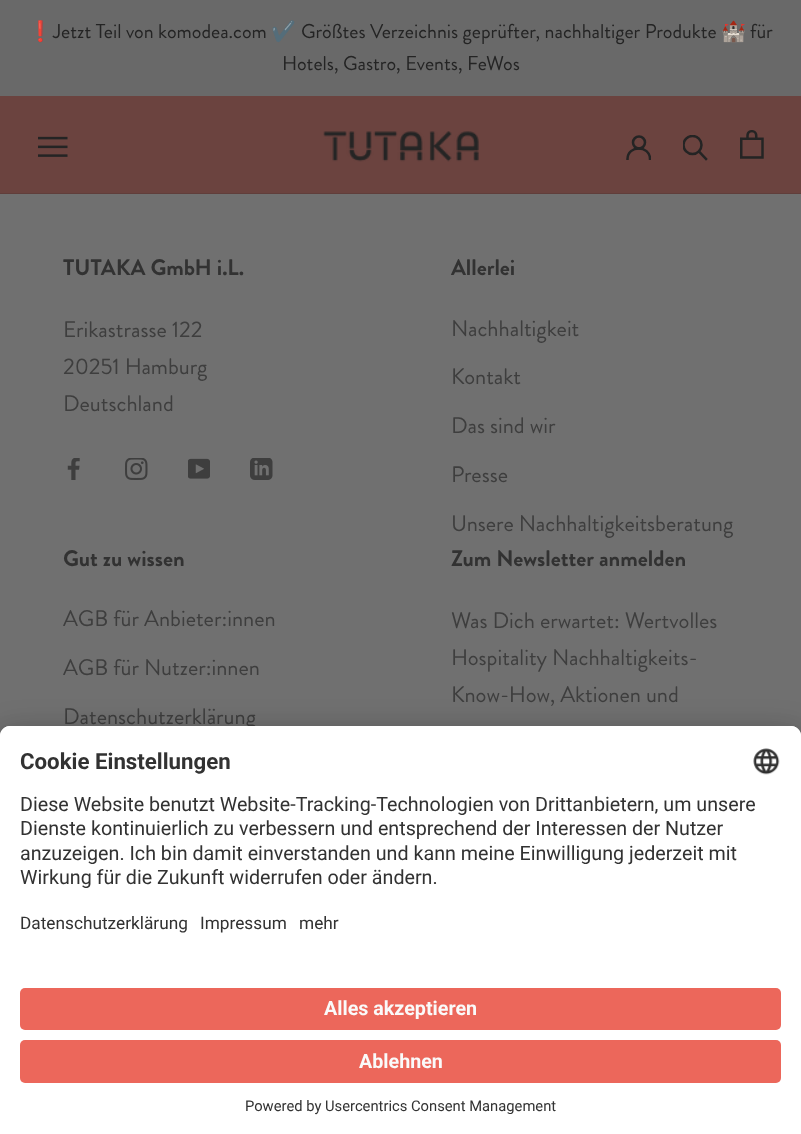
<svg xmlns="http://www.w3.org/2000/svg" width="801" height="1134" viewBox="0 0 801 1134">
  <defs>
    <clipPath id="clip1"><rect x="626" y="135" width="25" height="25"/></clipPath>
    <clipPath id="clip2"><rect x="683" y="135" width="26" height="26"/></clipPath>
  </defs>
  <rect width="100%" height="100%" fill="rgb(112,112,112)"/>
  <rect x="0" y="0" width="801" height="96" fill="rgb(105,105,105)"/>
  <text x="28" y="38" font-family="Noto Color Emoji" font-size="20" fill="rgb(36,36,36)">❗</text>
  <text x="53" y="38" font-family="Brandon Grotesque" font-size="20" fill="rgb(36,36,36)">Jetzt Teil von komodea.com</text>
  <text x="271" y="38" font-family="Noto Color Emoji" font-size="20" fill="rgb(36,36,36)">✔️</text>
  <text x="301" y="38" font-family="Brandon Grotesque" font-size="20" fill="rgb(36,36,36)">Größtes Verzeichnis geprüfter, nachhaltiger Produkte</text>
  <text x="721" y="38" font-family="Noto Color Emoji" font-size="20" fill="rgb(36,36,36)">🏰</text>
  <g font-family="Brandon Grotesque" font-size="20" fill="rgb(36,36,36)">
    <text x="750" y="38">für</text>
    <text x="282" y="70">Hotels, Gastro, Events, FeWos</text>
  </g>
  <rect x="0" y="96" width="801" height="97" fill="rgb(107,67,63)"/>
  <rect x="0" y="193" width="801" height="1" fill="rgb(96,62,59)"/>
  <image x="38" y="136" width="30" height="21" href="pic1.png"/>
  <image x="323" y="131" width="156" height="31" href="pic2.png"/>
  <g clip-path="url(#clip1)">
    <path d="M627.5 159C627.5 145 650 145 650 159" fill="none" stroke="rgb(36,36,36)" stroke-width="2.5" stroke-linecap="square"/>
  </g>
  <circle cx="639" cy="142.5" r="6" fill="none" stroke="rgb(36,36,36)" stroke-width="2.5"/>
  <path d="M706 159L699 151.5" fill="none" stroke="rgb(36,36,36)" stroke-width="2.5" stroke-linecap="square"/>
  <g clip-path="url(#clip2)">
    <circle cx="692.5" cy="145" r="9" fill="none" stroke="rgb(36,36,36)" stroke-width="2.5"/>
  </g>
  <image x="740" y="130" width="24" height="29" href="pic3.png"/>
  <text x="63" y="275" font-family="Brandon Grotesque" font-size="22.5" font-weight="bold" fill="rgb(50,50,50)">TUTAKA GmbH i.L.</text>
  <g font-family="Brandon Grotesque" font-size="22.5" fill="rgb(62,62,62)">
    <text>
      <tspan x="63" y="337">Erikastrasse 122</tspan>
      <tspan x="63" y="374">20251 Hamburg</tspan>
      <tspan x="63" y="411">Deutschland</tspan>
    </text>
  </g>
  <image x="67" y="458" width="13" height="22" href="pic4.png"/>
  <image x="125" y="458" width="23" height="22" href="pic5.png"/>
  <image x="188" y="458" width="22" height="21" href="pic6.png"/>
  <image x="250" y="458" width="23" height="22" href="pic7.png"/>
  <text x="451" y="275" font-family="Brandon Grotesque" font-size="22.5" font-weight="bold" fill="rgb(50,50,50)">Allerlei</text>
  <g font-family="Brandon Grotesque" font-size="22.5" fill="rgb(62,62,62)">
    <text x="451" y="336">Nachhaltigkeit</text>
    <text x="451" y="384">Kontakt</text>
    <text x="451" y="433">Das sind wir</text>
    <text x="451" y="482">Presse</text>
    <text x="451" y="531">Unsere Nachhaltigkeitsberatung</text>
  </g>
  <text x="63" y="566" font-family="Brandon Grotesque" font-size="22.5" font-weight="bold" fill="rgb(50,50,50)">Gut zu wissen</text>
  <g font-family="Brandon Grotesque" font-size="22.5" fill="rgb(62,62,62)">
    <text x="63" y="626">AGB für Anbieter:innen</text>
    <text x="63" y="675">AGB für Nutzer:innen</text>
    <text x="63" y="724">Datenschutzerklärung</text>
  </g>
  <text x="451" y="566" font-family="Brandon Grotesque" font-size="22.5" font-weight="bold" fill="rgb(50,50,50)">Zum Newsletter anmelden</text>
  <g font-family="Brandon Grotesque" font-size="22.5" fill="rgb(62,62,62)">
    <text>
      <tspan x="451" y="628">Was Dich erwartet: Wertvolles</tspan>
      <tspan x="451" y="665">Hospitality Nachhaltigkeits-</tspan>
      <tspan x="451" y="702">Know-How, Aktionen und</tspan>
    </text>
  </g>
  <rect x="0" y="751" width="801" height="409" rx="10" fill="rgba(0,0,0,0.3)" filter="blur(17.5px)"/>
  <rect x="0" y="733" width="801" height="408" rx="10" fill="rgba(0,0,0,0.22)" filter="blur(16px)"/>
  <path d="M10 726H791C796.5 726 801 730.5 801 736V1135H0V736C0 730.5 4.5 726 10 726Z" fill="rgb(255,255,255)"/>
  <path d="M10 726H791C796.5 726 801 730.5 801 736V973H0V736C0 730.5 4.5 726 10 726Z" fill="rgb(255,255,255)"/>
  <text x="20" y="769" font-family="Roboto" font-size="22.25" font-weight="bold" fill="rgb(50,50,50)">Cookie Einstellungen</text>
  <image x="753" y="748" width="27" height="27" href="pic8.png"/>
  <g font-family="Roboto" font-size="19.7" fill="rgb(50,50,50)">
    <text>
      <tspan x="20" y="811">Diese Website benutzt Website-Tracking-Technologien von Drittanbietern, um unsere</tspan>
      <tspan x="20" y="835">Dienste kontinuierlich zu verbessern und entsprechend der Interessen der Nutzer</tspan>
      <tspan x="20" y="860">anzuzeigen. Ich bin damit einverstanden und kann meine Einwilligung jederzeit mit</tspan>
      <tspan x="20" y="884">Wirkung für die Zukunft widerrufen oder ändern.</tspan>
    </text>
  </g>
  <g font-family="Roboto" font-size="17.25" fill="rgb(50,50,50)">
    <text x="20" y="929">Datenschutzerklärung</text>
    <text x="200" y="929">Impressum</text>
    <text x="299" y="929">mehr</text>
  </g>
  <rect x="20" y="988" width="761" height="42" rx="5" fill="rgb(236,103,91)"/>
  <text x="324" y="1015" font-family="Roboto" font-size="19.7" font-weight="bold" fill="rgb(250,250,250)">Alles akzeptieren</text>
  <rect x="20" y="1040" width="761" height="43" rx="5" fill="rgb(236,103,91)"/>
  <text x="359" y="1068" font-family="Roboto" font-size="19.7" font-weight="bold" fill="rgb(250,250,250)">Ablehnen</text>
  <text x="245" y="1111" font-family="Roboto" font-size="14.75" fill="rgb(50,50,50)">Powered by Usercentrics Consent Management</text>
</svg>
